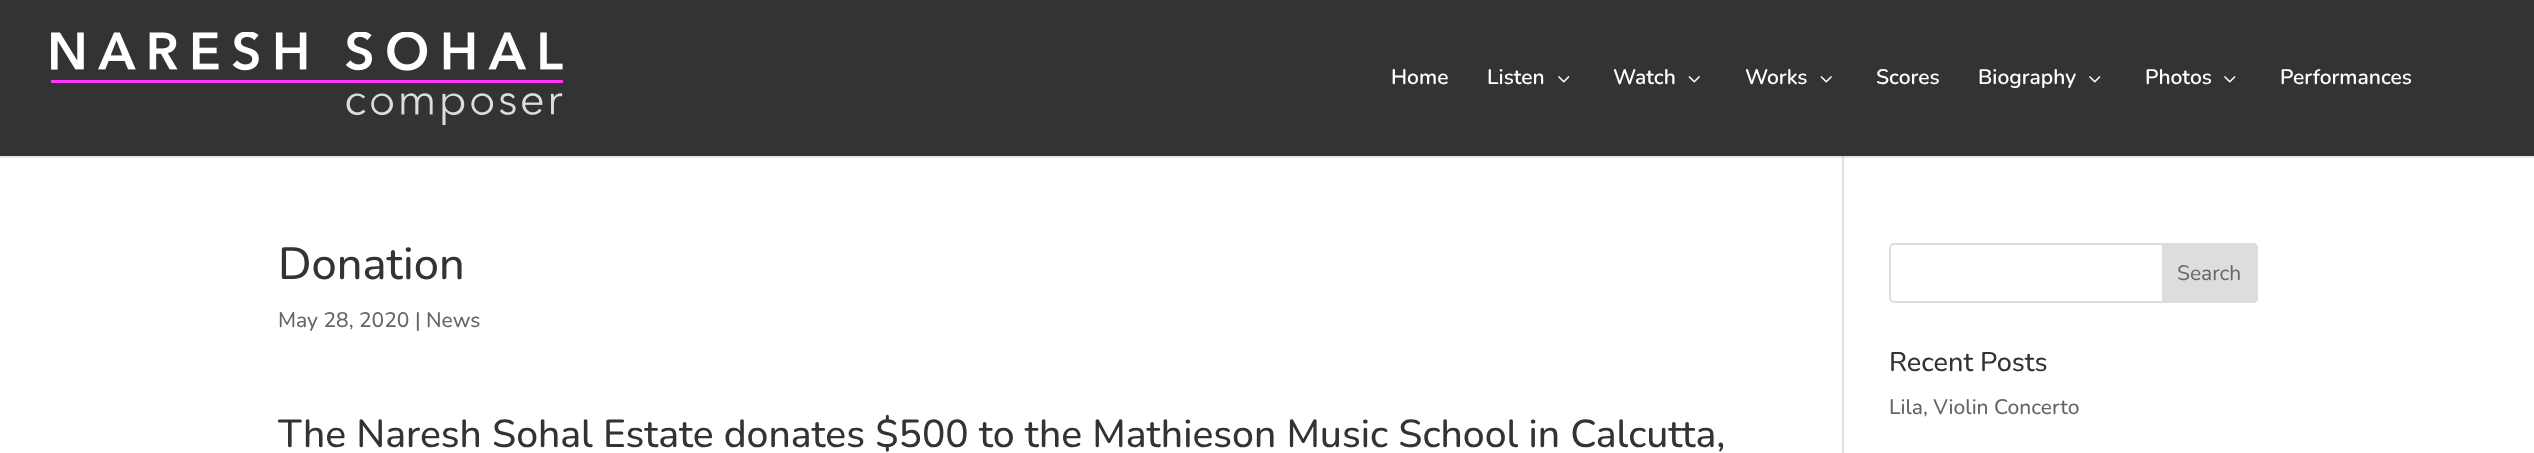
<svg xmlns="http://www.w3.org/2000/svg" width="2534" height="453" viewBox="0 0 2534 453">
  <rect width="100%" height="100%" fill="rgb(255,255,255)"/>
  <rect x="0" y="156" width="2534" height="2" fill="rgb(230,230,230)"/>
  <rect x="0" y="0" width="2534" height="156" fill="rgb(51,51,51)"/>
  <image x="51" y="32" width="512" height="93" href="pic1.png"/>
  <g font-family="Nunito" font-size="21" font-weight="600" fill="rgb(255,255,255)">
    <text x="1391" y="84">Home</text>
    <text x="1487" y="84">Listen</text>
  </g>
  <image x="1558" y="76" width="12" height="7" href="pic2.png"/>
  <text x="1613" y="84" font-family="Nunito" font-size="21" font-weight="600" fill="rgb(255,255,255)">Watch</text>
  <image x="1688" y="76" width="12" height="7" href="pic3.png"/>
  <text x="1745" y="84" font-family="Nunito" font-size="21" font-weight="600" fill="rgb(255,255,255)">Works</text>
  <image x="1820" y="76" width="12" height="7" href="pic3.png"/>
  <g font-family="Nunito" font-size="21" font-weight="600" fill="rgb(255,255,255)">
    <text x="1876" y="84">Scores</text>
    <text x="1978" y="84">Biography</text>
  </g>
  <image x="2089" y="76" width="12" height="7" href="pic2.png"/>
  <text x="2145" y="84" font-family="Nunito" font-size="21" font-weight="600" fill="rgb(255,255,255)">Photos</text>
  <image x="2224" y="76" width="12" height="7" href="pic2.png"/>
  <text x="2280" y="84" font-family="Nunito" font-size="21" font-weight="600" fill="rgb(255,255,255)">Performances</text>
  <rect x="1842" y="156" width="2" height="297" fill="rgb(226,226,226)"/>
  <rect x="1842" y="156" width="2" height="2" fill="rgb(203,203,203)"/>
  <text x="278" y="279" font-family="Nunito" font-size="45" font-weight="500" fill="rgb(51,51,51)">Donation</text>
  <text x="278" y="327" font-family="Nunito" font-size="21" font-weight="500" fill="rgb(102,102,102)">May 28, 2020 | News</text>
  <text x="278" y="447" font-family="Nunito" font-size="39" font-weight="500" fill="rgb(51,51,51)">The Naresh Sohal Estate donates $500 to the Mathieson Music School in Calcutta,</text>
  <rect x="1890" y="244" width="367" height="58" rx="4" fill="none" stroke="rgb(221,221,221)" stroke-width="2"/>
  <path d="M2163 244H2253C2255 244 2257 246 2257 248V298C2257 300 2255 302 2253 302H2163Z" fill="rgb(221,221,221)" stroke="rgb(221,221,221)" stroke-width="2"/>
  <text x="2177" y="280" font-family="Nunito" font-size="21" fill="rgb(102,102,102)">Search</text>
  <text x="1889" y="371" font-family="Nunito" font-size="27" font-weight="500" fill="rgb(51,51,51)">Recent Posts</text>
  <text x="1889" y="414" font-family="Nunito" font-size="21" font-weight="500" fill="rgb(102,102,102)">Lila, Violin Concerto</text>
</svg>
